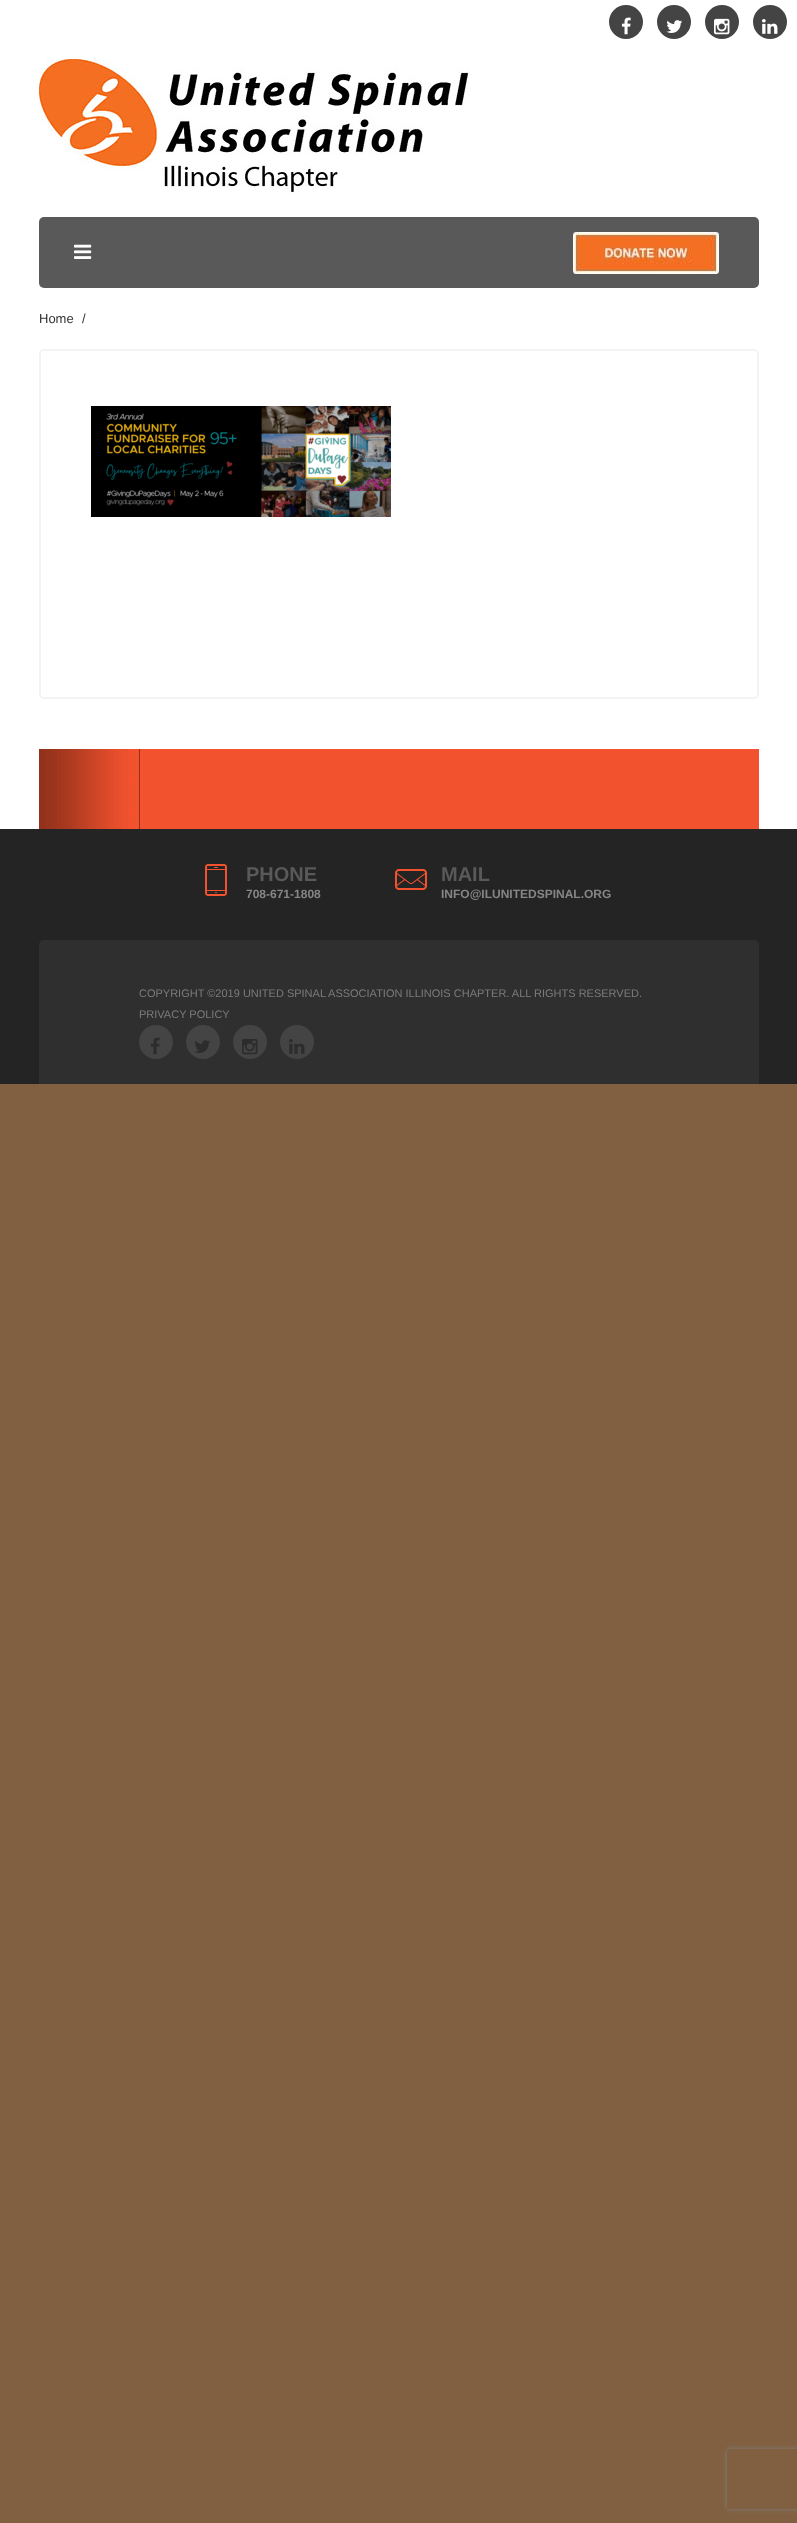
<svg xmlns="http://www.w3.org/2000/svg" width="797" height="2523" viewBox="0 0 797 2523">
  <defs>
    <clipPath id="clip1"><path d="M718 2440H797V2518H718ZM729 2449H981C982 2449 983 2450 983 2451V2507C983 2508 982 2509 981 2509H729C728 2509 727 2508 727 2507V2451C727 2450 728 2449 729 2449Z" clip-rule="evenodd"/></clipPath>
  </defs>
  <rect width="100%" height="100%" fill="rgb(128,96,64)"/>
  <rect x="0" y="0" width="797" height="829" fill="rgb(255,255,255)"/>
  <circle cx="626" cy="22" r="17" fill="rgb(68,68,68)"/>
  <image x="621" y="17" width="10" height="18" href="pic1.png"/>
  <circle cx="674" cy="22" r="17" fill="rgb(68,68,68)"/>
  <image x="666" y="20" width="17" height="13" href="pic2.png"/>
  <circle cx="722" cy="22" r="17" fill="rgb(68,68,68)"/>
  <image x="714" y="18" width="16" height="17" href="pic3.png"/>
  <circle cx="770" cy="22" r="17" fill="rgb(68,68,68)"/>
  <image x="762" y="19" width="16" height="15" href="pic4.png"/>
  <image x="39" y="59" width="431" height="134" href="pic5.png"/>
  <rect x="39" y="217" width="720" height="71" rx="5" fill="rgb(89,89,89)"/>
  <image x="74" y="244" width="18" height="15" href="pic6.png"/>
  <image x="573" y="232" width="146" height="42" href="pic7.png"/>
  <g font-family="Liberation Sans" font-size="13" fill="rgb(51,51,51)">
    <text x="39" y="323">Home</text>
    <text x="82" y="323">/</text>
  </g>
  <rect x="40" y="350" width="718" height="348" rx="4" fill="none" stroke="rgb(242,244,244)" stroke-width="2"/>
  <image x="91" y="406" width="300" height="111" href="pic8.png"/>
  <rect x="39" y="749" width="720" height="80" fill="rgb(242,82,46)"/>
  <image x="39" y="749" width="101" height="80" href="pic9.png"/>
  <rect x="0" y="829" width="797" height="255" fill="rgb(36,36,36)"/>
  <image x="205" y="864" width="22" height="32" href="pic10.png"/>
  <text x="246" y="881" font-family="Liberation Sans" font-size="20" font-weight="bold" fill="rgb(89,89,89)">PHONE</text>
  <text x="246" y="898" font-family="Liberation Sans" font-size="12" font-weight="bold" fill="rgb(135,134,134)">708-671-1808</text>
  <image x="395" y="869" width="32" height="21" href="pic11.png"/>
  <text x="441" y="881" font-family="Liberation Sans" font-size="20" font-weight="bold" fill="rgb(89,89,89)">MAIL</text>
  <text x="441" y="898" font-family="Liberation Sans" font-size="12" font-weight="bold" fill="rgb(135,134,134)">INFO@ILUNITEDSPINAL.ORG</text>
  <path d="M44 940H754C757 940 759 942 759 945V1084H39V945C39 942 41 940 44 940Z" fill="rgb(47,47,47)"/>
  <g font-family="Liberation Sans" font-size="11" fill="rgb(124,124,124)">
    <text>
      <tspan x="139" y="997">COPYRIGHT ©2019 UNITED SPINAL ASSOCIATION ILLINOIS CHAPTER. ALL RIGHTS RESERVED.</tspan>
      <tspan x="139" y="1018">PRIVACY POLICY</tspan>
    </text>
  </g>
  <circle cx="156" cy="1042" r="17" fill="rgb(68,68,68)"/>
  <image x="151" y="1037" width="9" height="18" href="pic12.png"/>
  <circle cx="203" cy="1042" r="17" fill="rgb(68,68,68)"/>
  <image x="195" y="1040" width="15" height="13" href="pic13.png"/>
  <circle cx="250" cy="1042" r="17" fill="rgb(68,68,68)"/>
  <image x="242" y="1039" width="16" height="16" href="pic14.png"/>
  <circle cx="297" cy="1042" r="17" fill="rgb(68,68,68)"/>
  <image x="289" y="1039" width="16" height="15" href="pic15.png"/>
  <g clip-path="url(#clip1)">
    <rect x="727" y="2449" width="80" height="60" rx="2" fill="rgb(128,128,128)" filter="blur(2.5px)"/>
  </g>
</svg>
